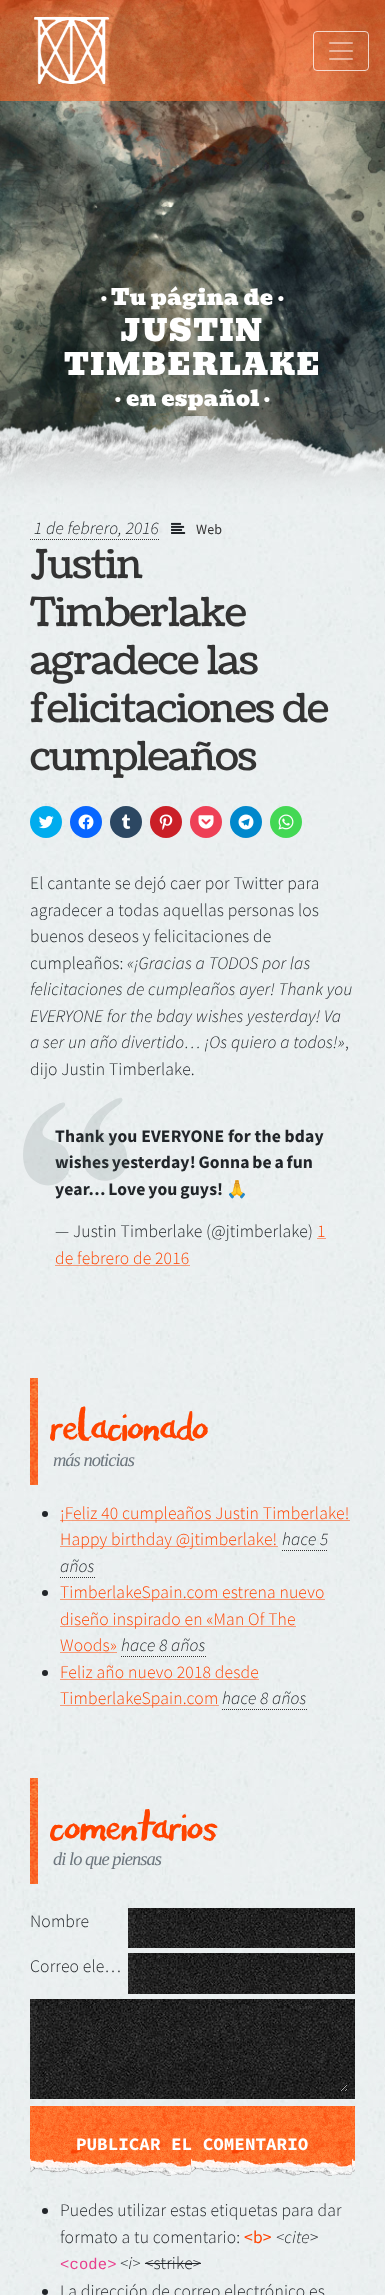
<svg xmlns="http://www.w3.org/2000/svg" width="385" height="2295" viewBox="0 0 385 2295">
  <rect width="100%" height="100%" fill="rgb(255,255,255)"/>
  <image x="0" y="0" width="385" height="459" href="pic1.png"/>
  <image x="0" y="0" width="385" height="101" href="pic2.png"/>
  <image x="34" y="17" width="76" height="67" href="pic3.png"/>
  <rect x="313.5" y="31.5" width="55" height="39" rx="3.5" fill="none" stroke="rgba(255,255,255,0.75)"/>
  <image x="329" y="42" width="24" height="18" href="pic4.png"/>
  <text x="101" y="302" font-family="Bevan" font-size="13" letter-spacing="0.15" fill="rgb(255,255,255)">•</text>
  <text x="111" y="305" font-family="Bevan" font-size="22" letter-spacing="0.15" fill="rgb(255,255,255)">Tu página de</text>
  <text x="278" y="302" font-family="Bevan" font-size="13" letter-spacing="0.15" fill="rgb(255,255,255)">•</text>
  <g font-family="Bevan" font-size="29.75" letter-spacing="1.5" fill="rgb(255,255,255)">
    <text x="121" y="341">JUSTIN</text>
    <text x="64" y="375">TIMBERLAKE</text>
  </g>
  <text x="115" y="403" font-family="Bevan" font-size="13" letter-spacing="0.15" fill="rgb(255,255,255)">•</text>
  <text x="126" y="406" font-family="Bevan" font-size="22" letter-spacing="0.15" fill="rgb(255,255,255)">en español</text>
  <text x="264" y="403" font-family="Bevan" font-size="13" letter-spacing="0.15" fill="rgb(255,255,255)">•</text>
  <image x="0" y="415" width="385" height="100" href="pic5.png"/>
  <image x="0" y="515" width="385" height="1780" href="pic6.png"/>
  <text x="34" y="534" font-family="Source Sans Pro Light" font-size="17.6" font-weight="300" font-style="italic" letter-spacing="0.15" fill="rgb(33,37,41)">1 de febrero, 2016</text>
  <path d="M30 539.5H159" fill="none" stroke="rgb(51,51,51)" stroke-dasharray="1 1"/>
  <image x="171" y="522" width="15" height="12" href="pic7.png"/>
  <text x="196" y="534" font-family="Source Sans Pro" font-size="14" letter-spacing="0.15" fill="rgb(51,51,51)">Web</text>
  <g font-family="Coustard" font-size="40" letter-spacing="-1" fill="rgb(51,51,51)">
    <text>
      <tspan x="30" y="578">Justin</tspan>
      <tspan x="30" y="626">Timberlake</tspan>
      <tspan x="30" y="674">agradece las</tspan>
      <tspan x="30" y="722">felicitaciones de</tspan>
      <tspan x="30" y="770">cumpleaños</tspan>
    </text>
  </g>
  <circle cx="46" cy="822" r="16" fill="rgb(0,172,238)"/>
  <image x="38" y="816" width="16" height="13" href="pic8.png"/>
  <circle cx="86" cy="822" r="16" fill="rgb(8,102,255)"/>
  <image x="78" y="814" width="16" height="16" href="pic9.png"/>
  <circle cx="126" cy="822" r="16" fill="rgb(44,71,98)"/>
  <image x="121" y="814" width="10" height="15" href="pic10.png"/>
  <circle cx="166" cy="822" r="16" fill="rgb(202,31,39)"/>
  <image x="159" y="814" width="14" height="16" href="pic11.png"/>
  <circle cx="206" cy="822" r="16" fill="rgb(238,64,86)"/>
  <image x="198" y="815" width="16" height="14" href="pic12.png"/>
  <circle cx="246" cy="822" r="16" fill="rgb(0,136,204)"/>
  <image x="238" y="814" width="16" height="16" href="pic13.png"/>
  <circle cx="286" cy="822" r="16" fill="rgb(67,216,84)"/>
  <image x="278" y="814" width="16" height="16" href="pic14.png"/>
  <g font-family="Source Sans Pro Light" font-size="17.6" font-weight="300" letter-spacing="0.15" fill="rgb(33,37,41)">
    <text>
      <tspan x="30" y="889">El cantante se dejó caer por Twitter para</tspan>
      <tspan x="30" y="916">agradecer a todas aquellas personas los</tspan>
      <tspan x="30" y="942">buenos deseos y felicitaciones de</tspan>
      <tspan x="30" y="969">cumpleaños:</tspan>
    </text>
  </g>
  <g font-family="Source Sans Pro Light" font-size="17.6" font-weight="300" font-style="italic" letter-spacing="0.15" fill="rgb(33,37,41)">
    <text x="127" y="969">«¡Gracias a TODOS por las</text>
    <text>
      <tspan x="30" y="995">felicitaciones de cumpleaños ayer! Thank you</tspan>
      <tspan x="30" y="1022">EVERYONE for the bday wishes yesterday! Va</tspan>
      <tspan x="30" y="1048">a ser un año divertido… ¡Os quiero a todos!»</tspan>
    </text>
  </g>
  <g font-family="Source Sans Pro Light" font-size="17.6" font-weight="300" letter-spacing="0.15" fill="rgb(33,37,41)">
    <text x="345" y="1048">,</text>
    <text x="30" y="1075">dijo Justin Timberlake.</text>
  </g>
  <g font-family="Source Sans Pro" font-size="17.6" font-weight="bold" letter-spacing="0.15" fill="rgb(33,37,41)">
    <text>
      <tspan x="55" y="1142">Thank you EVERYONE for the bday</tspan>
      <tspan x="55" y="1168" word-spacing="-1">wishes yesterday! Gonna be a fun</tspan>
      <tspan x="55" y="1195" word-spacing="-1">year… Love you guys!</tspan>
    </text>
  </g>
  <image x="23" y="1097" width="105" height="89" href="pic15.png"/>
  <text x="226" y="1195" font-family="Noto Color Emoji" font-size="17.6" letter-spacing="0.15" fill="rgb(33,37,41)">🙏</text>
  <text x="55" y="1237" font-family="Source Sans Pro Light" font-size="17.6" font-weight="300" letter-spacing="0.15" fill="rgb(33,37,41)">— Justin Timberlake (@jtimberlake)</text>
  <text x="317" y="1237" font-family="Source Sans Pro Light" font-size="17.6" font-weight="300" letter-spacing="0.15" fill="rgb(255,68,0)">1</text>
  <rect x="317" y="1238" width="9" height="1" fill="rgba(255,68,0,0.5)"/>
  <text x="55" y="1264" font-family="Source Sans Pro Light" font-size="17.6" font-weight="300" letter-spacing="0.15" fill="rgb(255,68,0)">de febrero de 2016</text>
  <rect x="55" y="1265" width="135" height="1" fill="rgba(255,68,0,0.5)"/>
  <image x="30" y="1378" width="8" height="107" href="pic16.png"/>
  <text x="50" y="1441" font-family="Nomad" font-size="53" letter-spacing="-1" fill="rgb(255,68,0)">relacionado</text>
  <text x="53" y="1466" font-family="Liberation Serif" font-size="18.5" font-style="italic" letter-spacing="-1" fill="rgb(108,117,125)">más noticias</text>
  <circle cx="45" cy="1514" r="3" fill="rgb(33,37,41)"/>
  <rect x="60" y="1520" width="290" height="1" fill="rgba(255,68,0,0.5)"/>
  <text x="60" y="1519" font-family="Source Sans Pro Light" font-size="17.6" font-weight="300" letter-spacing="0.15" fill="rgb(255,68,0)">¡Feliz 40 cumpleaños Justin Timberlake!</text>
  <rect x="60" y="1546" width="218" height="1" fill="rgba(255,68,0,0.5)"/>
  <text x="60" y="1545" font-family="Source Sans Pro Light" font-size="17.6" font-weight="300" letter-spacing="0.15" fill="rgb(255,68,0)">Happy birthday @jtimberlake!</text>
  <text x="282" y="1545" font-family="Source Sans Pro Light" font-size="17.6" font-weight="300" font-style="italic" letter-spacing="0.15" fill="rgb(33,37,41)">hace 5</text>
  <path d="M282 1550.5H328" fill="none" stroke="rgb(51,51,51)" stroke-dasharray="1 1"/>
  <text x="60" y="1572" font-family="Source Sans Pro Light" font-size="17.6" font-weight="300" font-style="italic" letter-spacing="0.15" fill="rgb(33,37,41)">años</text>
  <path d="M60 1577.5H95" fill="none" stroke="rgb(51,51,51)" stroke-dasharray="1 1"/>
  <circle cx="45" cy="1593" r="3" fill="rgb(33,37,41)"/>
  <rect x="60" y="1599" width="265" height="1" fill="rgba(255,68,0,0.5)"/>
  <text x="60" y="1598" font-family="Source Sans Pro Light" font-size="17.6" font-weight="300" letter-spacing="0.15" fill="rgb(255,68,0)">TimberlakeSpain.com estrena nuevo</text>
  <rect x="60" y="1626" width="236" height="1" fill="rgba(255,68,0,0.5)"/>
  <g font-family="Source Sans Pro Light" font-size="17.6" font-weight="300" letter-spacing="0.15" fill="rgb(255,68,0)">
    <text>
      <tspan x="60" y="1625">diseño inspirado en «Man Of The</tspan>
      <tspan x="60" y="1651">Woods»</tspan>
    </text>
  </g>
  <rect x="60" y="1652" width="57" height="1" fill="rgba(255,68,0,0.5)"/>
  <text x="121" y="1651" font-family="Source Sans Pro Light" font-size="17.6" font-weight="300" font-style="italic" letter-spacing="0.15" fill="rgb(33,37,41)">hace 8 años</text>
  <path d="M121 1656.5H206" fill="none" stroke="rgb(51,51,51)" stroke-dasharray="1 1"/>
  <circle cx="45" cy="1673" r="3" fill="rgb(33,37,41)"/>
  <text x="60" y="1678" font-family="Source Sans Pro Light" font-size="17.6" font-weight="300" letter-spacing="0.15" fill="rgb(255,68,0)">Feliz año nuevo 2018 desde</text>
  <rect x="60" y="1679" width="199" height="1" fill="rgba(255,68,0,0.5)"/>
  <rect x="60" y="1705" width="159" height="1" fill="rgba(255,68,0,0.5)"/>
  <text x="60" y="1704" font-family="Source Sans Pro Light" font-size="17.6" font-weight="300" letter-spacing="0.15" fill="rgb(255,68,0)">TimberlakeSpain.com</text>
  <text x="222" y="1704" font-family="Source Sans Pro Light" font-size="17.6" font-weight="300" font-style="italic" letter-spacing="0.15" fill="rgb(33,37,41)">hace 8 años</text>
  <path d="M222 1709.5H307" fill="none" stroke="rgb(51,51,51)" stroke-dasharray="1 1"/>
  <image x="30" y="1778" width="8" height="106" href="pic17.png"/>
  <text x="50" y="1841" font-family="Nomad" font-size="53" letter-spacing="-1" fill="rgb(255,68,0)">comentarios</text>
  <text x="53" y="1865" font-family="Liberation Serif" font-size="18.5" font-style="italic" letter-spacing="-1" fill="rgb(108,117,125)">di lo que piensas</text>
  <text x="30" y="1927" font-family="Source Sans Pro Light" font-size="17.6" font-weight="300" letter-spacing="0.15" fill="rgb(33,37,41)">Nombre</text>
  <image x="128" y="1908" width="227" height="40" href="pic18.png"/>
  <text x="30" y="1972" font-family="Source Sans Pro Light" font-size="17.6" font-weight="300" letter-spacing="0.15" fill="rgb(33,37,41)">Correo ele…</text>
  <image x="128" y="1953" width="227" height="41" href="pic19.png"/>
  <image x="30" y="1999" width="325" height="100" href="pic20.png"/>
  <image x="30" y="2106" width="325" height="70" href="pic21.png"/>
  <text x="76" y="2150" font-family="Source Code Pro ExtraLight" font-size="17.6" font-weight="bold" fill="rgb(255,255,255)">PUBLICAR EL COMENTARIO</text>
  <circle cx="45" cy="2211" r="3" fill="rgb(33,37,41)"/>
  <g font-family="Source Sans Pro Light" font-size="17.6" font-weight="300" letter-spacing="0.15" fill="rgb(33,37,41)">
    <text>
      <tspan x="60" y="2216">Puedes utilizar estas etiquetas para dar</tspan>
      <tspan x="60" y="2243">formato a tu comentario:</tspan>
    </text>
  </g>
  <text x="244" y="2243" font-family="Source Sans Pro" font-size="17.6" letter-spacing="0.15" fill="rgb(255,68,0)">&lt;b&gt;</text>
  <text x="276" y="2243" font-family="Source Sans Pro Light" font-size="17.6" font-weight="300" font-style="italic" letter-spacing="0.15" fill="rgb(33,37,41)">&lt;cite</text>
  <text x="310" y="2243" font-family="Source Sans Pro Light" font-size="17.6" font-weight="300" letter-spacing="0.15" fill="rgb(33,37,41)">&gt;</text>
  <text x="60" y="2269" font-family="Liberation Mono" font-size="15.5" letter-spacing="0.15" fill="rgb(232,62,140)">&lt;code&gt;</text>
  <text x="120" y="2269" font-family="Source Sans Pro Light" font-size="17.6" font-weight="300" font-style="italic" letter-spacing="0.15" fill="rgb(33,37,41)">&lt;i&gt;</text>
  <text x="145" y="2269" font-family="Source Sans Pro Light" font-size="17.6" font-weight="300" letter-spacing="0.15" fill="rgb(33,37,41)">&lt;strike&gt;</text>
  <rect x="145" y="2263" width="56" height="1" fill="rgb(33,37,41)"/>
  <circle cx="45" cy="2292" r="3" fill="rgb(33,37,41)"/>
  <text x="60" y="2297" font-family="Source Sans Pro Light" font-size="17.6" font-weight="300" letter-spacing="0.15" fill="rgb(33,37,41)">La dirección de correo electrónico es</text>
</svg>
